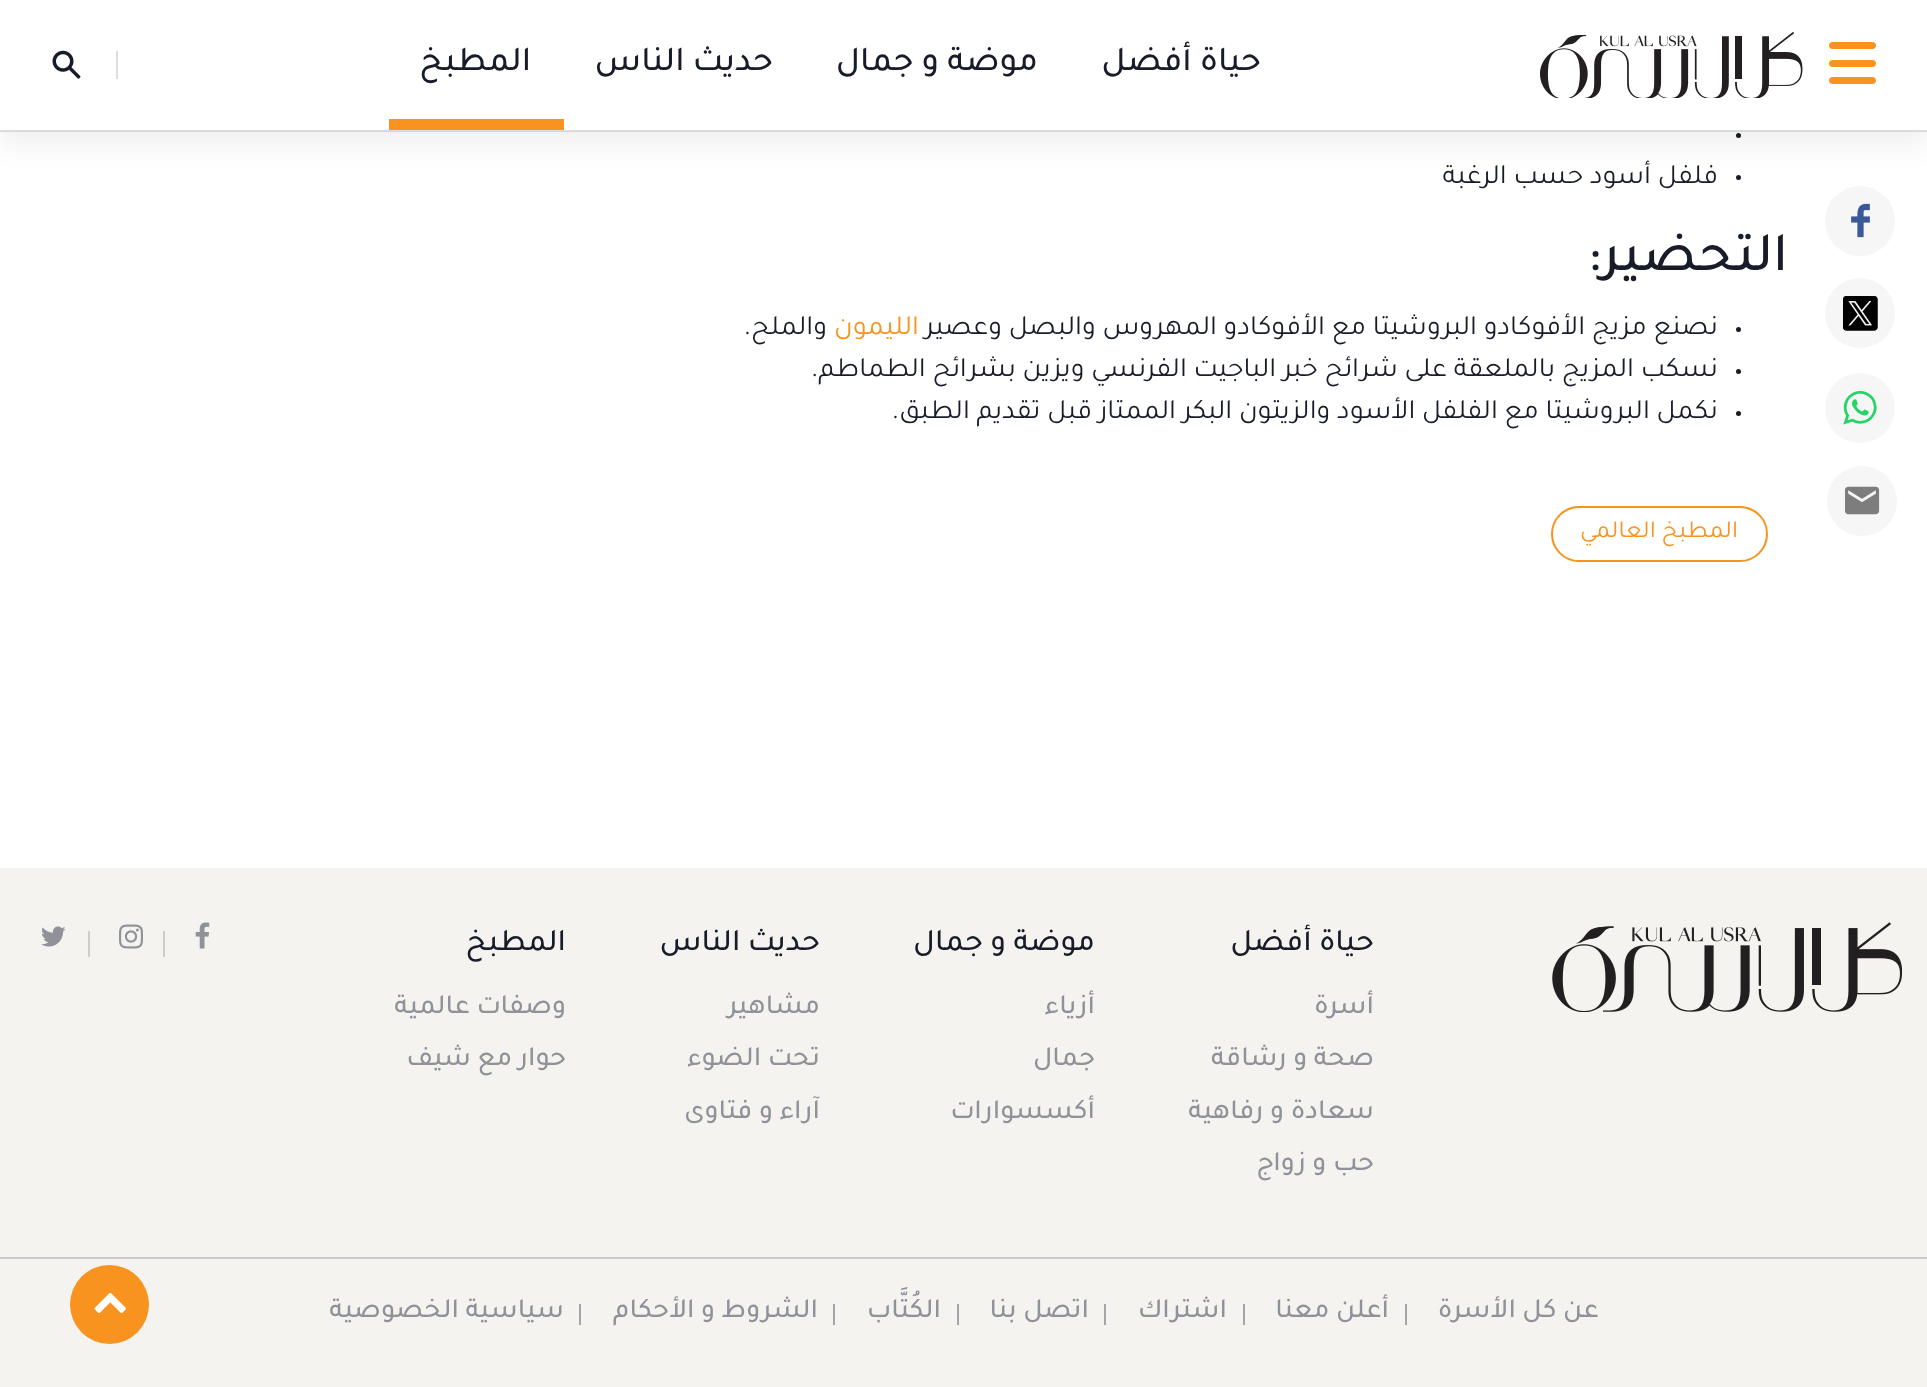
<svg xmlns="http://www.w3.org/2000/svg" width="1927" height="1387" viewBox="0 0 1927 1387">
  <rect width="100%" height="100%" fill="rgb(255,255,255)"/>
  <circle cx="1738.5" cy="135.5" r="2.5" fill="rgb(23,28,40)"/>
  <circle cx="1738.5" cy="177.5" r="2.5" fill="rgb(23,28,40)"/>
  <rect x="0" y="14" width="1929" height="131" fill="rgba(0,0,0,0.06)" filter="blur(13px)"/>
  <rect x="0" y="1" width="1927" height="130" fill="rgb(255,255,255)"/>
  <rect x="0" y="130" width="1927" height="2" fill="rgba(143,146,152,0.3)"/>
  <path d="M1853 42H1872.5C1874.5 42 1876 43.5 1876 45.5C1876 47.5 1874.5 49 1872.5 49H1853Z" fill="rgb(247,147,30)"/>
  <path d="M1832.5 42H1853V49H1832.5C1830.5 49 1829 47.5 1829 45.5C1829 43.5 1830.5 42 1832.5 42Z" fill="rgb(247,147,30)"/>
  <path d="M1853 60H1872.5C1874.5 60 1876 61.5 1876 63.5C1876 65.5 1874.5 67 1872.5 67H1853Z" fill="rgb(247,147,30)"/>
  <path d="M1832.5 60H1853V67H1832.5C1830.5 67 1829 65.5 1829 63.5C1829 61.5 1830.5 60 1832.5 60Z" fill="rgb(247,147,30)"/>
  <path d="M1853 77H1872.5C1874.5 77 1876 78.5 1876 80.5C1876 82.5 1874.5 84 1872.5 84H1853Z" fill="rgb(247,147,30)"/>
  <path d="M1832.5 77H1853V84H1832.5C1830.5 84 1829 82.5 1829 80.5C1829 78.5 1830.5 77 1832.5 77Z" fill="rgb(247,147,30)"/>
  <image x="1540" y="32" width="263" height="66" href="pic1.png"/>
  <g font-family="Tajawal" font-size="35" font-weight="500" direction="rtl" fill="rgb(23,28,40)">
    <text x="1261" y="70">حياة أفضل</text>
    <text x="1038" y="70">موضة و جمال</text>
    <text x="773" y="70">حديث الناس</text>
  </g>
  <rect x="389" y="119" width="175" height="11" fill="rgb(247,147,30)"/>
  <text x="531" y="70" font-family="Tajawal" font-size="35" font-weight="500" direction="rtl" fill="rgb(23,28,40)">المطبخ</text>
  <rect x="116" y="51" width="2" height="28" fill="rgb(221,222,224)"/>
  <image x="52" y="50" width="29" height="29" href="pic2.png"/>
  <circle cx="1860" cy="221" r="35" fill="rgb(246,246,246)"/>
  <image x="1851" y="203" width="19" height="35" href="pic3.png"/>
  <circle cx="1860" cy="313" r="35" fill="rgb(246,246,246)"/>
  <image x="1843" y="296" width="35" height="35" href="pic4.png"/>
  <circle cx="1860" cy="408" r="35" fill="rgb(246,246,246)"/>
  <image x="1843" y="390" width="34" height="35" href="pic5.png"/>
  <circle cx="1862" cy="501" r="35" fill="rgb(246,246,246)"/>
  <image x="1845" y="486" width="35" height="29" href="pic6.png"/>
  <text x="1718" y="183" font-family="Tajawal" font-size="28" direction="rtl" fill="rgb(23,28,40)">فلفل أسود حسب الرغبة</text>
  <text x="1788" y="270" font-family="Tajawal" font-size="56" font-weight="500" direction="rtl" fill="rgb(23,28,40)">التحضير:</text>
  <circle cx="1738.5" cy="329.5" r="2.5" fill="rgb(23,28,40)"/>
  <text x="1718" y="334" font-family="Tajawal" font-size="28" direction="rtl" fill="rgb(23,28,40)">نصنع مزيج الأفوكادو البروشيتا مع الأفوكادو المهروس والبصل وعصير</text>
  <text x="919" y="334" font-family="Tajawal" font-size="28" direction="rtl" fill="rgb(247,147,30)">الليمون</text>
  <text x="827" y="334" font-family="Tajawal" font-size="28" direction="rtl" fill="rgb(23,28,40)">والملح.</text>
  <circle cx="1738.5" cy="371.5" r="2.5" fill="rgb(23,28,40)"/>
  <text x="1718" y="376" font-family="Tajawal" font-size="28" direction="rtl" fill="rgb(23,28,40)">نسكب المزيج بالملعقة على شرائح خبر الباجيت الفرنسي ويزين بشرائح الطماطم.</text>
  <circle cx="1738.5" cy="413.5" r="2.5" fill="rgb(23,28,40)"/>
  <text x="1718" y="418" font-family="Tajawal" font-size="28" direction="rtl" fill="rgb(23,28,40)">نكمل البروشيتا مع الفلفل الأسود والزيتون البكر الممتاز قبل تقديم الطبق.</text>
  <rect x="1552" y="507" width="215" height="54" rx="27" fill="none" stroke="rgb(247,147,30)" stroke-width="2"/>
  <text x="1738" y="537" font-family="Tajawal" font-size="24.5" direction="rtl" fill="rgb(247,147,30)">المطبخ العالمي</text>
  <rect x="0" y="868" width="1927" height="519" fill="rgb(245,243,239)"/>
  <image x="1552" y="922" width="350" height="90" href="pic7.png"/>
  <text x="1374" y="950" font-family="Tajawal" font-size="31.5" font-weight="500" direction="rtl" fill="rgb(23,28,40)">حياة أفضل</text>
  <g font-family="Tajawal" font-size="28" font-weight="500" direction="rtl" fill="rgb(143,146,152)">
    <text>
      <tspan x="1374" y="1013">أسرة</tspan>
      <tspan x="1374" y="1065">صحة و رشاقة</tspan>
      <tspan x="1374" y="1118">سعادة و رفاهية</tspan>
      <tspan x="1374" y="1170">حب و زواج</tspan>
    </text>
  </g>
  <text x="1095" y="950" font-family="Tajawal" font-size="31.5" font-weight="500" direction="rtl" fill="rgb(23,28,40)">موضة و جمال</text>
  <g font-family="Tajawal" font-size="28" font-weight="500" direction="rtl" fill="rgb(143,146,152)">
    <text>
      <tspan x="1095" y="1013">أزياء</tspan>
      <tspan x="1095" y="1065">جمال</tspan>
      <tspan x="1095" y="1118">أكسسوارات</tspan>
    </text>
  </g>
  <text x="820" y="950" font-family="Tajawal" font-size="31.5" font-weight="500" direction="rtl" fill="rgb(23,28,40)">حديث الناس</text>
  <g font-family="Tajawal" font-size="28" font-weight="500" direction="rtl" fill="rgb(143,146,152)">
    <text>
      <tspan x="820" y="1013">مشاهير</tspan>
      <tspan x="820" y="1065">تحت الضوء</tspan>
      <tspan x="820" y="1118">آراء و فتاوى</tspan>
    </text>
  </g>
  <text x="566" y="950" font-family="Tajawal" font-size="31.5" font-weight="500" direction="rtl" fill="rgb(23,28,40)">المطبخ</text>
  <g font-family="Tajawal" font-size="28" font-weight="500" direction="rtl" fill="rgb(143,146,152)">
    <text>
      <tspan x="566" y="1013">وصفات عالمية</tspan>
      <tspan x="566" y="1065">حوار مع شيف</tspan>
    </text>
  </g>
  <image x="195" y="922" width="15" height="27" href="pic8.png"/>
  <rect x="163" y="931" width="2" height="26" fill="rgb(204,204,204)"/>
  <image x="119" y="924" width="24" height="25" href="pic9.png"/>
  <rect x="88" y="931" width="2" height="26" fill="rgb(204,204,204)"/>
  <image x="41" y="926" width="25" height="21" href="pic10.png"/>
  <rect x="0" y="1257" width="1927" height="2" fill="rgb(204,204,204)"/>
  <text x="1599" y="1317" font-family="Tajawal" font-size="28" font-weight="500" direction="rtl" fill="rgb(143,146,152)">عن كل الأسرة</text>
  <rect x="1405" y="1304" width="2" height="21" fill="rgb(163,165,169)"/>
  <text x="1389" y="1317" font-family="Tajawal" font-size="28" font-weight="500" direction="rtl" fill="rgb(143,146,152)">أعلن معنا</text>
  <rect x="1243" y="1304" width="2" height="21" fill="rgb(163,165,169)"/>
  <text x="1227" y="1317" font-family="Tajawal" font-size="28" font-weight="500" direction="rtl" fill="rgb(143,146,152)">اشتراك</text>
  <rect x="1104" y="1304" width="2" height="21" fill="rgb(163,165,169)"/>
  <text x="1089" y="1317" font-family="Tajawal" font-size="28" font-weight="500" direction="rtl" fill="rgb(143,146,152)">اتصل بنا</text>
  <rect x="957" y="1304" width="2" height="21" fill="rgb(163,165,169)"/>
  <text x="941" y="1317" font-family="Tajawal" font-size="28" font-weight="500" direction="rtl" fill="rgb(143,146,152)">الكُتَّاب</text>
  <rect x="833" y="1304" width="2" height="21" fill="rgb(163,165,169)"/>
  <text x="818" y="1317" font-family="Tajawal" font-size="28" font-weight="500" direction="rtl" fill="rgb(143,146,152)">الشروط و الأحكام</text>
  <rect x="579" y="1304" width="2" height="21" fill="rgb(163,165,169)"/>
  <text x="564" y="1317" font-family="Tajawal" font-size="28" font-weight="500" direction="rtl" fill="rgb(143,146,152)">سياسية الخصوصية</text>
  <circle cx="109.5" cy="1304.5" r="39.5" fill="rgb(247,147,30)"/>
  <image x="94" y="1292" width="32" height="22" href="pic11.png"/>
</svg>
